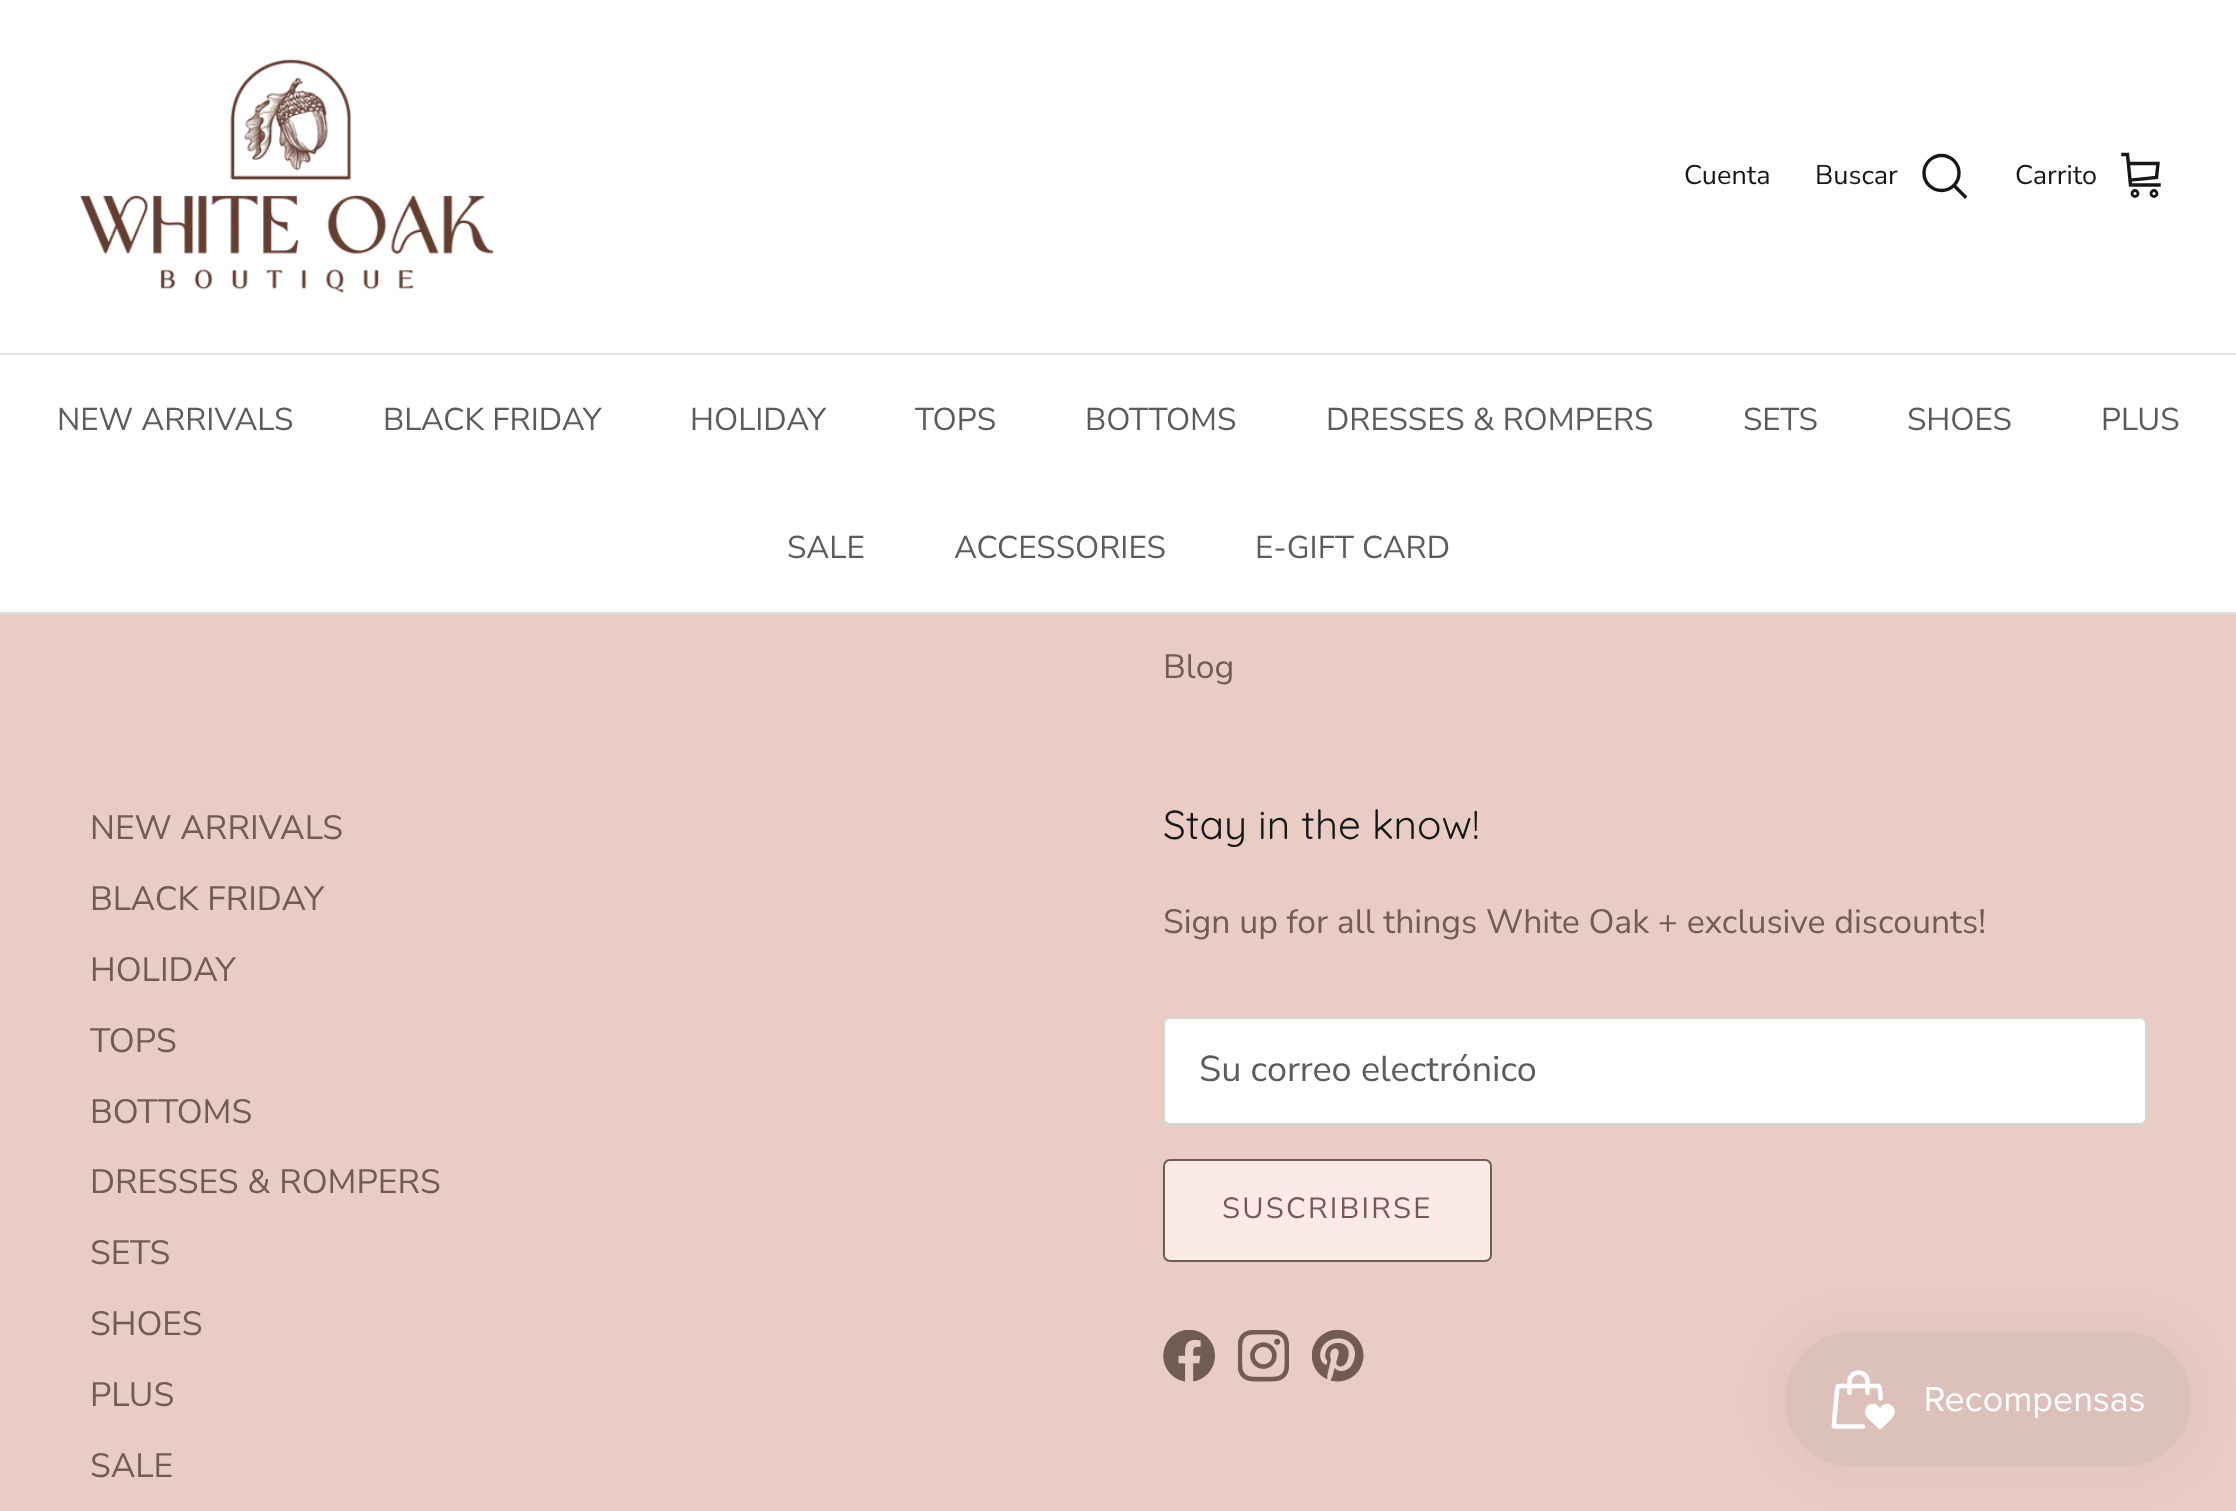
<svg xmlns="http://www.w3.org/2000/svg" width="2236" height="1511" viewBox="0 0 2236 1511">
  <rect width="100%" height="100%" fill="rgb(233,205,196)"/>
  <rect x="0" y="0" width="2236" height="612" fill="rgb(255,255,255)"/>
  <rect x="0" y="353" width="2236" height="2" fill="rgb(223,227,232)"/>
  <image x="79" y="59" width="415" height="234" href="pic1.png"/>
  <g font-family="Nunito Sans" font-size="27" fill="rgb(23,23,23)">
    <text x="1684" y="184">Cuenta</text>
    <text x="1815" y="184">Buscar</text>
  </g>
  <circle cx="1941.5" cy="173" r="17.5" fill="none" stroke="rgb(23,23,23)" stroke-width="3.4"/>
  <path d="M1955 186.5L1965 196.5" fill="none" stroke="rgb(23,23,23)" stroke-width="3.4" stroke-linecap="square"/>
  <text x="2015" y="184" font-family="Nunito Sans" font-size="27" fill="rgb(23,23,23)">Carrito</text>
  <path d="M2123 154.5H2127.5L2130.5 185H2159M2129 163.5H2158L2156.5 177.5L2132 180" fill="none" stroke="rgb(23,23,23)" stroke-width="3.4" stroke-linecap="square"/>
  <circle cx="2135" cy="193.5" r="3" fill="none" stroke="rgb(23,23,23)" stroke-width="2.8"/>
  <circle cx="2154" cy="193.5" r="3" fill="none" stroke="rgb(23,23,23)" stroke-width="2.8"/>
  <rect x="0" y="612" width="2236" height="2" fill="rgb(223,227,232)"/>
  <g font-family="Nunito Sans" font-size="31.5" fill="rgb(92,92,92)">
    <text x="57" y="430">NEW ARRIVALS</text>
    <text x="383" y="430">BLACK FRIDAY</text>
    <text x="690" y="430">HOLIDAY</text>
    <text x="915" y="430">TOPS</text>
    <text x="1085" y="430">BOTTOMS</text>
    <text x="1326" y="430">DRESSES &amp; ROMPERS</text>
    <text x="1743" y="430">SETS</text>
    <text x="1907" y="430">SHOES</text>
    <text x="2101" y="430">PLUS</text>
    <text x="787" y="558">SALE</text>
    <text x="954" y="558">ACCESSORIES</text>
    <text x="1255" y="558">E-GIFT CARD</text>
  </g>
  <g font-family="Nunito Sans" font-size="33.75" fill="rgb(113,92,85)">
    <text x="1163" y="678">Blog</text>
    <text x="90" y="839">NEW ARRIVALS</text>
    <text x="90" y="910">BLACK FRIDAY</text>
    <text x="90" y="981">HOLIDAY</text>
    <text x="90" y="1052">TOPS</text>
    <text x="90" y="1123">BOTTOMS</text>
    <text x="90" y="1193">DRESSES &amp; ROMPERS</text>
    <text x="90" y="1264">SETS</text>
    <text x="90" y="1335">SHOES</text>
    <text x="90" y="1406">PLUS</text>
    <text x="90" y="1477">SALE</text>
  </g>
  <text x="1163" y="839" font-family="Quicksand" font-size="40.5" fill="rgb(23,23,23)">Stay in the know!</text>
  <text x="1163" y="933" font-family="Nunito Sans" font-size="33.75" fill="rgb(113,92,85)">Sign up for all things White Oak + exclusive discounts!</text>
  <rect x="1164" y="1018" width="982" height="106" rx="6" fill="rgb(255,255,255)" stroke="rgb(214,214,214)" stroke-width="2"/>
  <text x="1199" y="1081" font-family="Nunito Sans" font-size="36" fill="rgb(92,92,92)">Su correo electrónico</text>
  <rect x="1164" y="1160" width="327" height="101" rx="6" fill="rgb(252,234,228)" stroke="rgb(113,92,85)" stroke-width="2"/>
  <text x="1222" y="1218" font-family="Nunito Sans" font-size="29.25" letter-spacing="2.25" fill="rgb(113,92,85)">SUSCRIBIRSE</text>
  <image x="1163" y="1330" width="52" height="52" href="pic2.png"/>
  <image x="1238" y="1330" width="51" height="52" href="pic3.png"/>
  <image x="1312" y="1330" width="52" height="52" href="pic4.png"/>
  <rect x="1784" y="1332" width="408" height="135" rx="67.5" fill="rgba(0,0,0,0.05)" filter="blur(28px)"/>
  <image x="1784" y="1332" width="407" height="135" href="pic5.png"/>
</svg>
